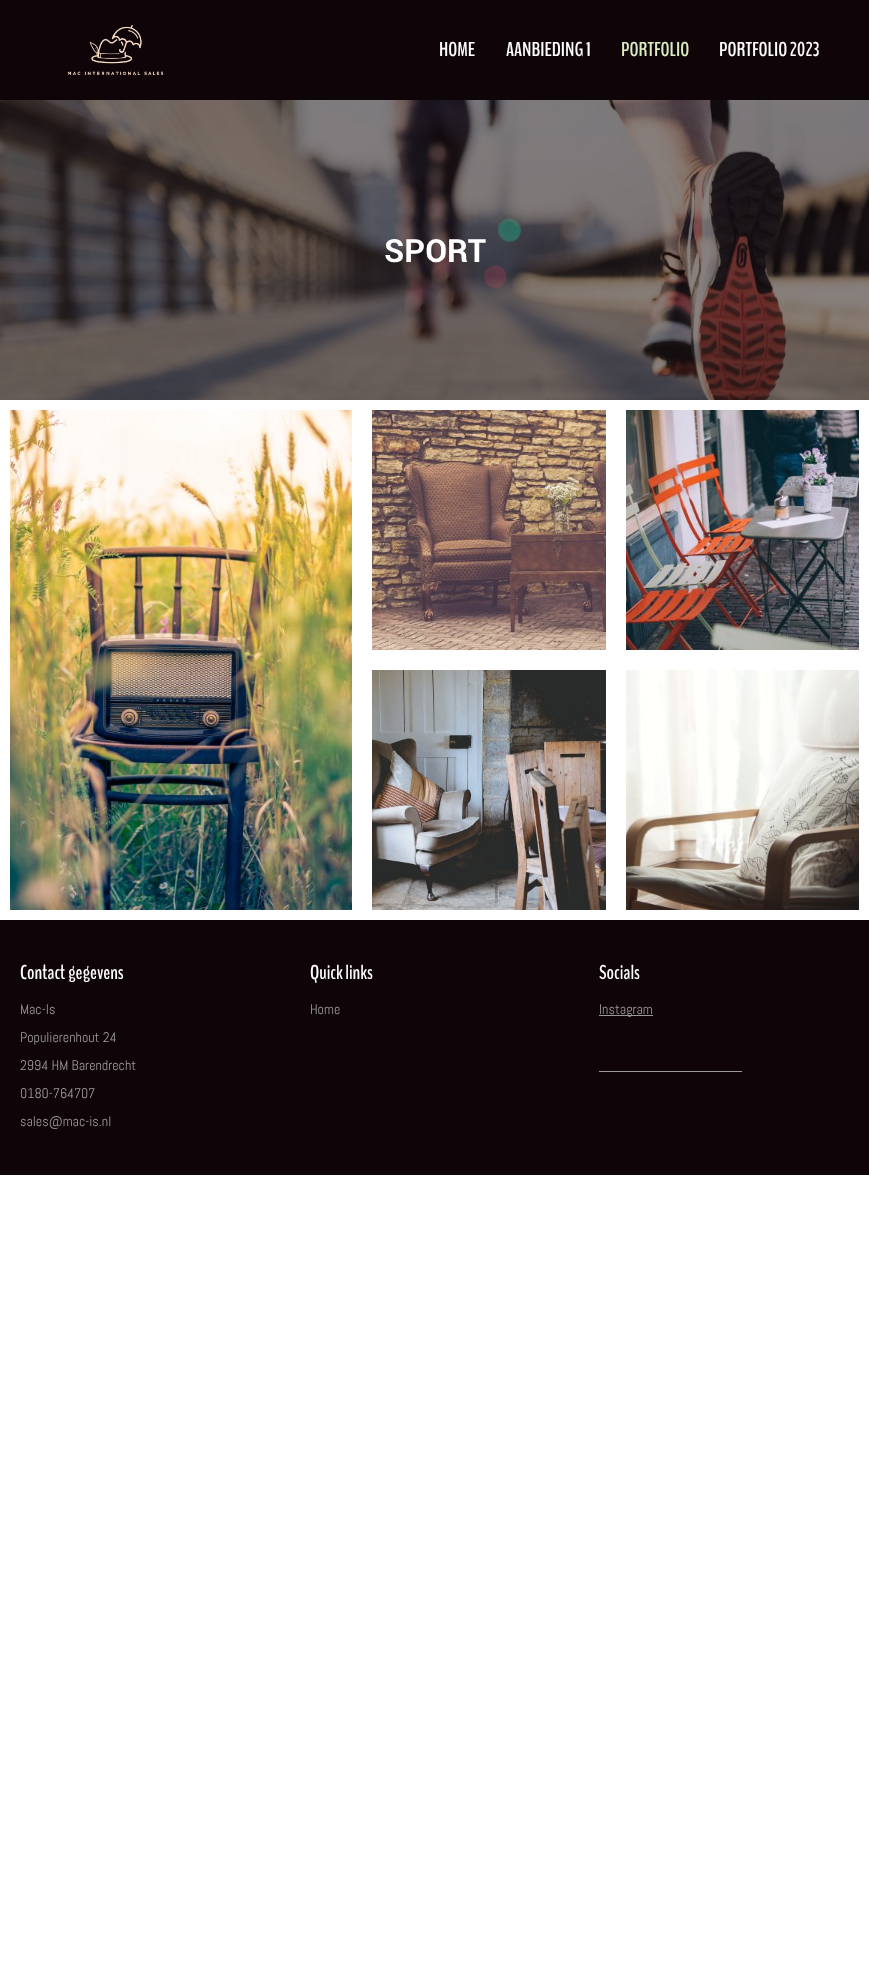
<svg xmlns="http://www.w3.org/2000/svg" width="869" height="1981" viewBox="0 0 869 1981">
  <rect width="100%" height="100%" fill="rgb(255,255,255)"/>
  <rect x="0" y="0" width="869" height="100" fill="rgb(15,4,8)"/>
  <image x="67" y="25" width="97" height="50" href="pic1.png"/>
  <g font-family="BenchNine" font-size="20" font-weight="bold" fill="rgb(255,255,255)">
    <text x="439" y="56">HOME</text>
    <text x="506" y="56">AANBIEDING 1</text>
  </g>
  <text x="621" y="56" font-family="BenchNine" font-size="20" font-weight="bold" fill="rgb(218,237,193)">PORTFOLIO</text>
  <text x="719" y="56" font-family="BenchNine" font-size="20" font-weight="bold" fill="rgb(255,255,255)">PORTFOLIO 2023</text>
  <image x="0" y="100" width="869" height="300" href="pic2.png"/>
  <text x="384" y="262" font-family="Roboto" font-size="32" font-weight="bold" fill="rgb(255,255,255)">SPORT</text>
  <image x="10" y="410" width="342" height="500" href="pic3.png"/>
  <image x="372" y="410" width="234" height="240" href="pic4.png"/>
  <image x="626" y="410" width="233" height="240" href="pic5.png"/>
  <image x="372" y="670" width="234" height="240" href="pic6.png"/>
  <image x="626" y="670" width="233" height="240" href="pic7.png"/>
  <rect x="0" y="920" width="869" height="255" fill="rgb(15,4,8)"/>
  <text x="20" y="979" font-family="BenchNine" font-size="20" font-weight="bold" fill="rgb(255,255,255)">Contact gegevens</text>
  <g font-family="Abel" font-size="14" fill="rgb(153,153,153)">
    <text x="20" y="1014">Mac-Is</text>
    <text x="20" y="1042">Populierenhout 24</text>
    <text x="20" y="1070">2994 HM Barendrecht</text>
    <text x="20" y="1098">0180-764707</text>
    <text x="20" y="1126">sales@mac-is.nl</text>
  </g>
  <text x="310" y="979" font-family="BenchNine" font-size="20" font-weight="bold" fill="rgb(255,255,255)">Quick links</text>
  <text x="310" y="1014" font-family="Abel" font-size="14" fill="rgb(153,153,153)">Home</text>
  <text x="599" y="979" font-family="BenchNine" font-size="20" font-weight="bold" fill="rgb(255,255,255)">Socials</text>
  <rect x="599" y="1015" width="54" height="1" fill="rgb(153,153,153)"/>
  <text x="599" y="1014" font-family="Abel" font-size="14" fill="rgb(153,153,153)">Instagram</text>
  <rect x="599" y="1071" width="143" height="1" fill="rgb(153,153,153)"/>
</svg>
